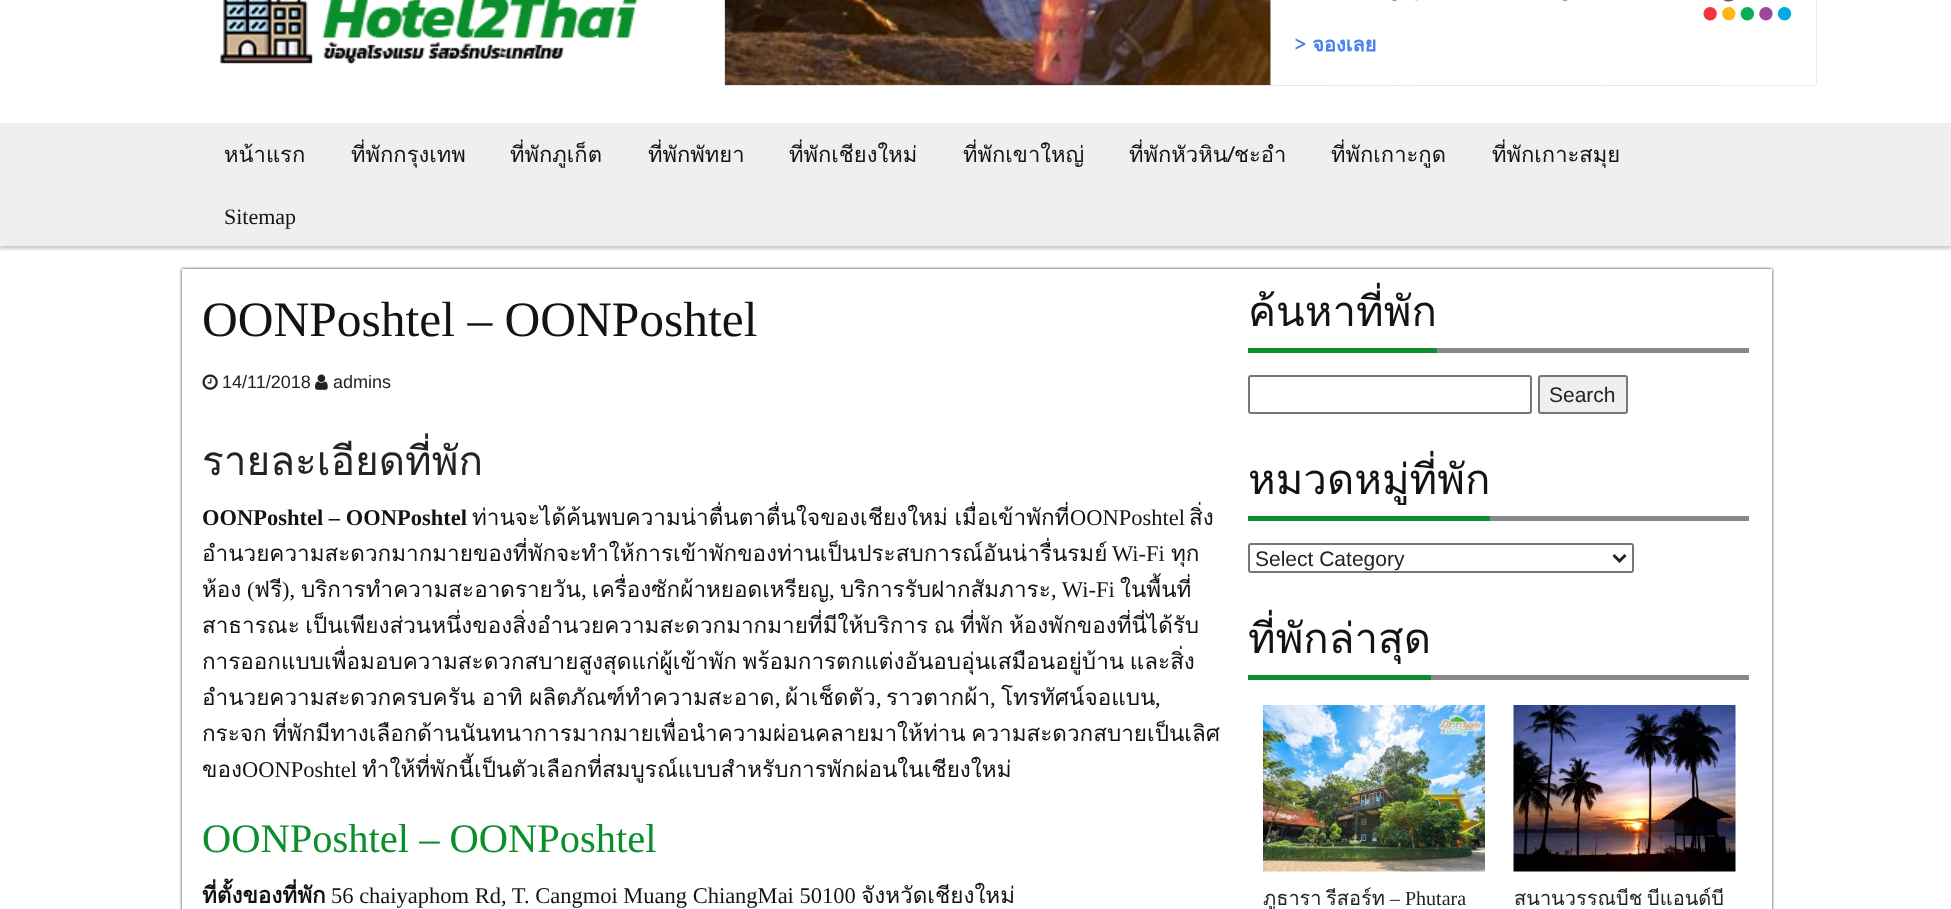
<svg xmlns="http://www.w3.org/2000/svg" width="1951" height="909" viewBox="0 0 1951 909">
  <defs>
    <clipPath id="clip1"><rect x="1260" y="882" width="228" height="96"/></clipPath>
  </defs>
  <rect width="100%" height="100%" fill="rgb(255,255,255)"/>
  <image x="220" y="0" width="418" height="64" href="pic1.png"/>
  <image x="724" y="0" width="1093" height="86" href="pic2.png"/>
  <rect x="0" y="126" width="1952" height="123" fill="rgba(0,0,0,0.2)" filter="blur(1.5px)"/>
  <rect x="0" y="123" width="1951" height="123" fill="rgb(239,239,239)"/>
  <g font-family="Loma" font-size="22" fill="rgb(19,19,19)">
    <text x="224" y="162">หน้าแรก</text>
    <text x="351" y="162">ที่พักกรุงเทพ</text>
    <text x="510" y="162">ที่พักภูเก็ต</text>
    <text x="648" y="162">ที่พักพัทยา</text>
    <text x="789" y="162">ที่พักเชียงใหม่</text>
    <text x="963" y="162">ที่พักเขาใหญ่</text>
    <text x="1129" y="162">ที่พักหัวหิน/ชะอำ</text>
    <text x="1331" y="162">ที่พักเกาะกูด</text>
    <text x="1492" y="162">ที่พักเกาะสมุย</text>
  </g>
  <text x="224" y="224" font-family="Liberation Serif" font-size="22" fill="rgb(19,19,19)">Sitemap</text>
  <rect x="182" y="269" width="1590" height="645" fill="rgb(35,35,35)" filter="blur(1.5px)"/>
  <rect x="182" y="269" width="1590" height="640" fill="rgb(255,255,255)"/>
  <text x="202" y="336" font-family="Liberation Serif" font-size="49.5" fill="rgb(19,19,19)">OONPoshtel – OONPoshtel</text>
  <image x="202" y="374" width="16" height="16" href="pic3.png"/>
  <text x="222" y="388" font-family="Liberation Sans" font-size="18" fill="rgb(35,35,35)">14/11/2018</text>
  <image x="315" y="374" width="13" height="16" href="pic4.png"/>
  <text x="333" y="388" font-family="Liberation Sans" font-size="18" fill="rgb(35,35,35)">admins</text>
  <text x="202" y="475" font-family="Loma" font-size="40.5" fill="rgb(35,35,35)">รายละเอียดที่พัก</text>
  <text x="202" y="525" font-family="Liberation Serif" font-size="22.5" font-weight="bold" fill="rgb(19,19,19)">OONPoshtel – OONPoshtel</text>
  <text x="472" y="525" word-spacing="-1" font-family="Loma" font-size="22.5" fill="rgb(19,19,19)">ท่านจะได้ค้นพบความน่าตื่นตาตื่นใจของเชียงใหม่ เมื่อเข้าพักที่</text>
  <text x="1070" y="525" font-family="Liberation Serif" font-size="22.5" fill="rgb(19,19,19)">OONPoshtel</text>
  <g font-family="Loma" font-size="22.5" fill="rgb(19,19,19)">
    <text x="1189" y="525">สิ่ง</text>
    <text x="202" y="561">อำนวยความสะดวกมากมายของที่พักจะทำให้การเข้าพักของท่านเป็นประสบการณ์อันน่ารื่นรมย์</text>
  </g>
  <text x="1112" y="561" font-family="Liberation Serif" font-size="22.5" fill="rgb(19,19,19)">Wi-Fi</text>
  <g font-family="Loma" font-size="22.5" fill="rgb(19,19,19)">
    <text x="1171" y="561">ทุก</text>
    <text x="202" y="597">ห้อง</text>
  </g>
  <text x="247" y="597" font-family="Liberation Serif" font-size="22.5" fill="rgb(19,19,19)">(</text>
  <text x="254" y="597" font-family="Loma" font-size="22.5" fill="rgb(19,19,19)">ฟรี</text>
  <text x="282" y="597" font-family="Liberation Serif" font-size="22.5" fill="rgb(19,19,19)">),</text>
  <text x="301" y="597" font-family="Loma" font-size="22.5" fill="rgb(19,19,19)">บริการทำความสะอาดรายวัน</text>
  <text x="581" y="597" font-family="Liberation Serif" font-size="22.5" fill="rgb(19,19,19)">,</text>
  <text x="592" y="597" font-family="Loma" font-size="22.5" fill="rgb(19,19,19)">เครื่องซักผ้าหยอดเหรียญ</text>
  <text x="829" y="597" font-family="Liberation Serif" font-size="22.5" fill="rgb(19,19,19)">,</text>
  <text x="840" y="597" font-family="Loma" font-size="22.5" fill="rgb(19,19,19)">บริการรับฝากสัมภาระ</text>
  <text x="1051" y="597" font-family="Liberation Serif" font-size="22.5" fill="rgb(19,19,19)">, Wi-Fi</text>
  <g font-family="Loma" font-size="22.5" fill="rgb(19,19,19)">
    <text x="1120" y="597">ในพื้นที่</text>
    <text>
      <tspan x="202" y="633" word-spacing="-2">สาธารณะ เป็นเพียงส่วนหนึ่งของสิ่งอำนวยความสะดวกมากมายที่มีให้บริการ ณ ที่พัก ห้องพักของที่นี่ได้รับ</tspan>
      <tspan x="202" y="669" word-spacing="-2">การออกแบบเพื่อมอบความสะดวกสบายสูงสุดแก่ผู้เข้าพัก พร้อมการตกแต่งอันอบอุ่นเสมือนอยู่บ้าน และสิ่ง</tspan>
      <tspan x="202" y="705" word-spacing="-1">อำนวยความสะดวกครบครัน อาทิ ผลิตภัณฑ์ทำความสะอาด</tspan>
    </text>
  </g>
  <text x="775" y="705" font-family="Liberation Serif" font-size="22.5" fill="rgb(19,19,19)">,</text>
  <g font-family="Loma" font-size="22.5" fill="rgb(19,19,19)">
    <text x="785" y="705">ผ้าเช็ดตัว</text>
    <text x="886" y="705">ราวตากผ้า</text>
    <text x="1001" y="705">โทรทัศน์จอแบน</text>
  </g>
  <g font-family="Liberation Serif" font-size="22.5" fill="rgb(19,19,19)">
    <text x="876" y="705">,</text>
    <text x="990" y="705">,</text>
    <text x="1155" y="705">,</text>
  </g>
  <g font-family="Loma" font-size="22.5" fill="rgb(19,19,19)">
    <text>
      <tspan x="202" y="741" word-spacing="-2">กระจก ที่พักมีทางเลือกด้านนันทนาการมากมายเพื่อนำความผ่อนคลายมาให้ท่าน ความสะดวกสบายเป็นเลิศ</tspan>
      <tspan x="202" y="777">ของ</tspan>
    </text>
  </g>
  <text x="242" y="777" font-family="Liberation Serif" font-size="22.5" fill="rgb(19,19,19)">OONPoshtel</text>
  <text x="362" y="777" font-family="Loma" font-size="22.5" fill="rgb(19,19,19)">ทำให้ที่พักนี้เป็นตัวเลือกที่สมบูรณ์แบบสำหรับการพักผ่อนในเชียงใหม่</text>
  <text x="202" y="852" font-family="Liberation Serif" font-size="40.5" fill="rgb(11,142,44)">OONPoshtel – OONPoshtel</text>
  <text x="202" y="903" font-family="Loma" font-size="22.5" font-weight="bold" fill="rgb(19,19,19)">ที่ตั้งของที่พัก</text>
  <text x="331" y="903" font-family="Liberation Serif" font-size="22.5" fill="rgb(19,19,19)">56 chaiyaphom Rd, T. Cangmoi Muang ChiangMai 50100</text>
  <text x="861" y="903" font-family="Loma" font-size="22.5" fill="rgb(19,19,19)">จังหวัดเชียงใหม่</text>
  <rect x="1437" y="348" width="312" height="5" fill="rgb(137,137,137)"/>
  <rect x="1248" y="348" width="189" height="5" fill="rgb(11,142,44)"/>
  <text x="1248" y="326" font-family="Loma" font-size="42" fill="rgb(19,19,19)">ค้นหาที่พัก</text>
  <rect x="1249" y="376" width="282" height="37" rx="2" fill="none" stroke="rgb(118,118,118)" stroke-width="2"/>
  <rect x="1539" y="376" width="88" height="37" rx="2" fill="rgb(239,239,239)" stroke="rgb(118,118,118)" stroke-width="2"/>
  <text x="1549" y="402" font-family="Liberation Sans" font-size="21" fill="rgb(35,35,35)">Search</text>
  <rect x="1490" y="516" width="259" height="5" fill="rgb(137,137,137)"/>
  <rect x="1248" y="516" width="242" height="5" fill="rgb(11,142,44)"/>
  <text x="1248" y="494" font-family="Loma" font-size="42" fill="rgb(19,19,19)">หมวดหมู่ที่พัก</text>
  <rect x="1249" y="544" width="384" height="28" rx="2" fill="none" stroke="rgb(118,118,118)" stroke-width="2"/>
  <path d="M1613.5 555L1619.5 561L1625.5 555" fill="none" stroke="rgb(35,35,35)" stroke-width="3"/>
  <text x="1255" y="566" font-family="Liberation Sans" font-size="21" fill="rgb(35,35,35)">Select Category</text>
  <rect x="1431" y="675" width="318" height="5" fill="rgb(137,137,137)"/>
  <rect x="1248" y="675" width="183" height="5" fill="rgb(11,142,44)"/>
  <text x="1248" y="653" font-family="Loma" font-size="42" fill="rgb(19,19,19)">ที่พักล่าสุด</text>
  <image x="1263" y="705" width="222" height="167" href="pic5.png"/>
  <g clip-path="url(#clip1)">
    <text x="1263" y="905" font-family="Loma" font-size="20" fill="rgb(35,35,35)">ภูธารา</text>
  </g>
  <text x="1326" y="905" font-family="Loma" font-size="20" fill="rgb(35,35,35)">รีสอร์ท</text>
  <text x="1390" y="905" font-family="Liberation Serif" font-size="20" fill="rgb(35,35,35)">– Phutara</text>
  <image x="1513" y="705" width="223" height="167" href="pic6.png"/>
  <text x="1514" y="905" word-spacing="-2" font-family="Loma" font-size="20" fill="rgb(35,35,35)">สนานวรรณบีช บีแอนด์บี</text>
</svg>
